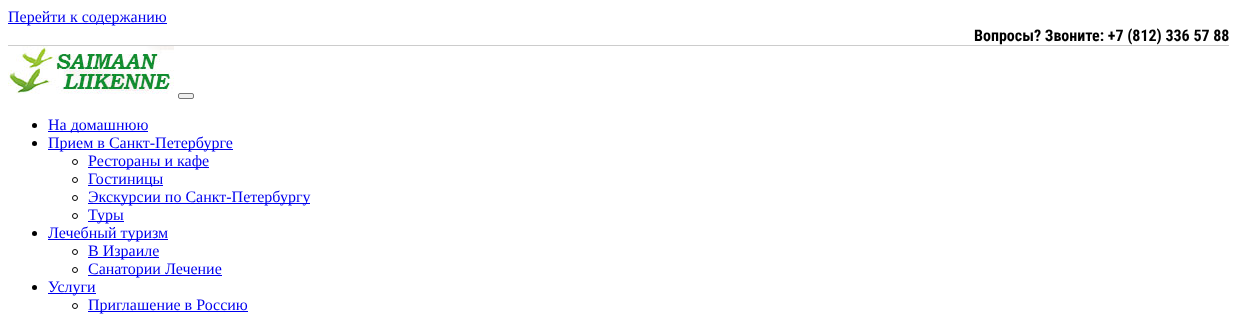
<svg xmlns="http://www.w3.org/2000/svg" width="1237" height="317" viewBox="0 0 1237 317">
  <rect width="100%" height="100%" fill="rgb(255,255,255)"/>
  <rect x="8" y="23" width="159" height="1" fill="rgb(0,0,238)"/>
  <text x="8" y="22" font-family="Liberation Serif" font-size="16" fill="rgb(0,0,238)">Перейти к содержанию</text>
  <rect x="8" y="45" width="1221" height="1" fill="rgb(204,204,204)"/>
  <text x="974" y="41" font-family="Roboto Condensed" font-size="16" font-weight="bold" fill="rgb(0,0,0)">Вопросы? Звоните: +7 (812) 336 57 88</text>
  <image x="8" y="46" width="166" height="48" href="pic1.png"/>
  <rect x="178.5" y="93.5" width="15" height="5" rx="1.5" fill="rgb(239,239,239)" stroke="rgb(118,118,118)"/>
  <circle cx="34.5" cy="125.5" r="2.5" fill="rgb(0,0,0)"/>
  <rect x="48" y="131" width="100" height="1" fill="rgb(0,0,238)"/>
  <text x="48" y="130" font-family="Liberation Serif" font-size="16" fill="rgb(0,0,238)">На домашнюю</text>
  <circle cx="34.5" cy="143.5" r="2.5" fill="rgb(0,0,0)"/>
  <rect x="48" y="149" width="185" height="1" fill="rgb(0,0,238)"/>
  <text x="48" y="148" font-family="Liberation Serif" font-size="16" fill="rgb(0,0,238)">Прием в Санкт-Петербурге</text>
  <circle cx="75" cy="162" r="2.5" fill="none" stroke="rgb(0,0,0)"/>
  <rect x="88" y="167" width="121" height="1" fill="rgb(0,0,238)"/>
  <text x="88" y="166" font-family="Liberation Serif" font-size="16" fill="rgb(0,0,238)">Рестораны и кафе</text>
  <circle cx="75" cy="180" r="2.5" fill="none" stroke="rgb(0,0,0)"/>
  <rect x="88" y="185" width="75" height="1" fill="rgb(0,0,238)"/>
  <text x="88" y="184" font-family="Liberation Serif" font-size="16" fill="rgb(0,0,238)">Гостиницы</text>
  <circle cx="75" cy="198" r="2.5" fill="none" stroke="rgb(0,0,0)"/>
  <rect x="88" y="203" width="222" height="1" fill="rgb(0,0,238)"/>
  <text x="88" y="202" font-family="Liberation Serif" font-size="16" fill="rgb(0,0,238)">Экскурсии по Санкт-Петербургу</text>
  <circle cx="75" cy="216" r="2.5" fill="none" stroke="rgb(0,0,0)"/>
  <rect x="88" y="221" width="36" height="1" fill="rgb(0,0,238)"/>
  <text x="88" y="220" font-family="Liberation Serif" font-size="16" fill="rgb(0,0,238)">Туры</text>
  <circle cx="34.5" cy="233.5" r="2.5" fill="rgb(0,0,0)"/>
  <rect x="48" y="239" width="120" height="1" fill="rgb(0,0,238)"/>
  <text x="48" y="238" font-family="Liberation Serif" font-size="16" fill="rgb(0,0,238)">Лечебный туризм</text>
  <circle cx="75" cy="252" r="2.5" fill="none" stroke="rgb(0,0,0)"/>
  <rect x="88" y="257" width="71" height="1" fill="rgb(0,0,238)"/>
  <text x="88" y="256" font-family="Liberation Serif" font-size="16" fill="rgb(0,0,238)">В Израиле</text>
  <circle cx="75" cy="270" r="2.5" fill="none" stroke="rgb(0,0,0)"/>
  <rect x="88" y="275" width="134" height="1" fill="rgb(0,0,238)"/>
  <text x="88" y="274" font-family="Liberation Serif" font-size="16" fill="rgb(0,0,238)">Санатории Лечение</text>
  <circle cx="34.5" cy="287.5" r="2.5" fill="rgb(0,0,0)"/>
  <rect x="48" y="293" width="48" height="1" fill="rgb(0,0,238)"/>
  <text x="48" y="292" font-family="Liberation Serif" font-size="16" fill="rgb(0,0,238)">Услуги</text>
  <circle cx="75" cy="306" r="2.5" fill="none" stroke="rgb(0,0,0)"/>
  <rect x="88" y="311" width="160" height="1" fill="rgb(0,0,238)"/>
  <text x="88" y="310" font-family="Liberation Serif" font-size="16" fill="rgb(0,0,238)">Приглашение в Россию</text>
</svg>
